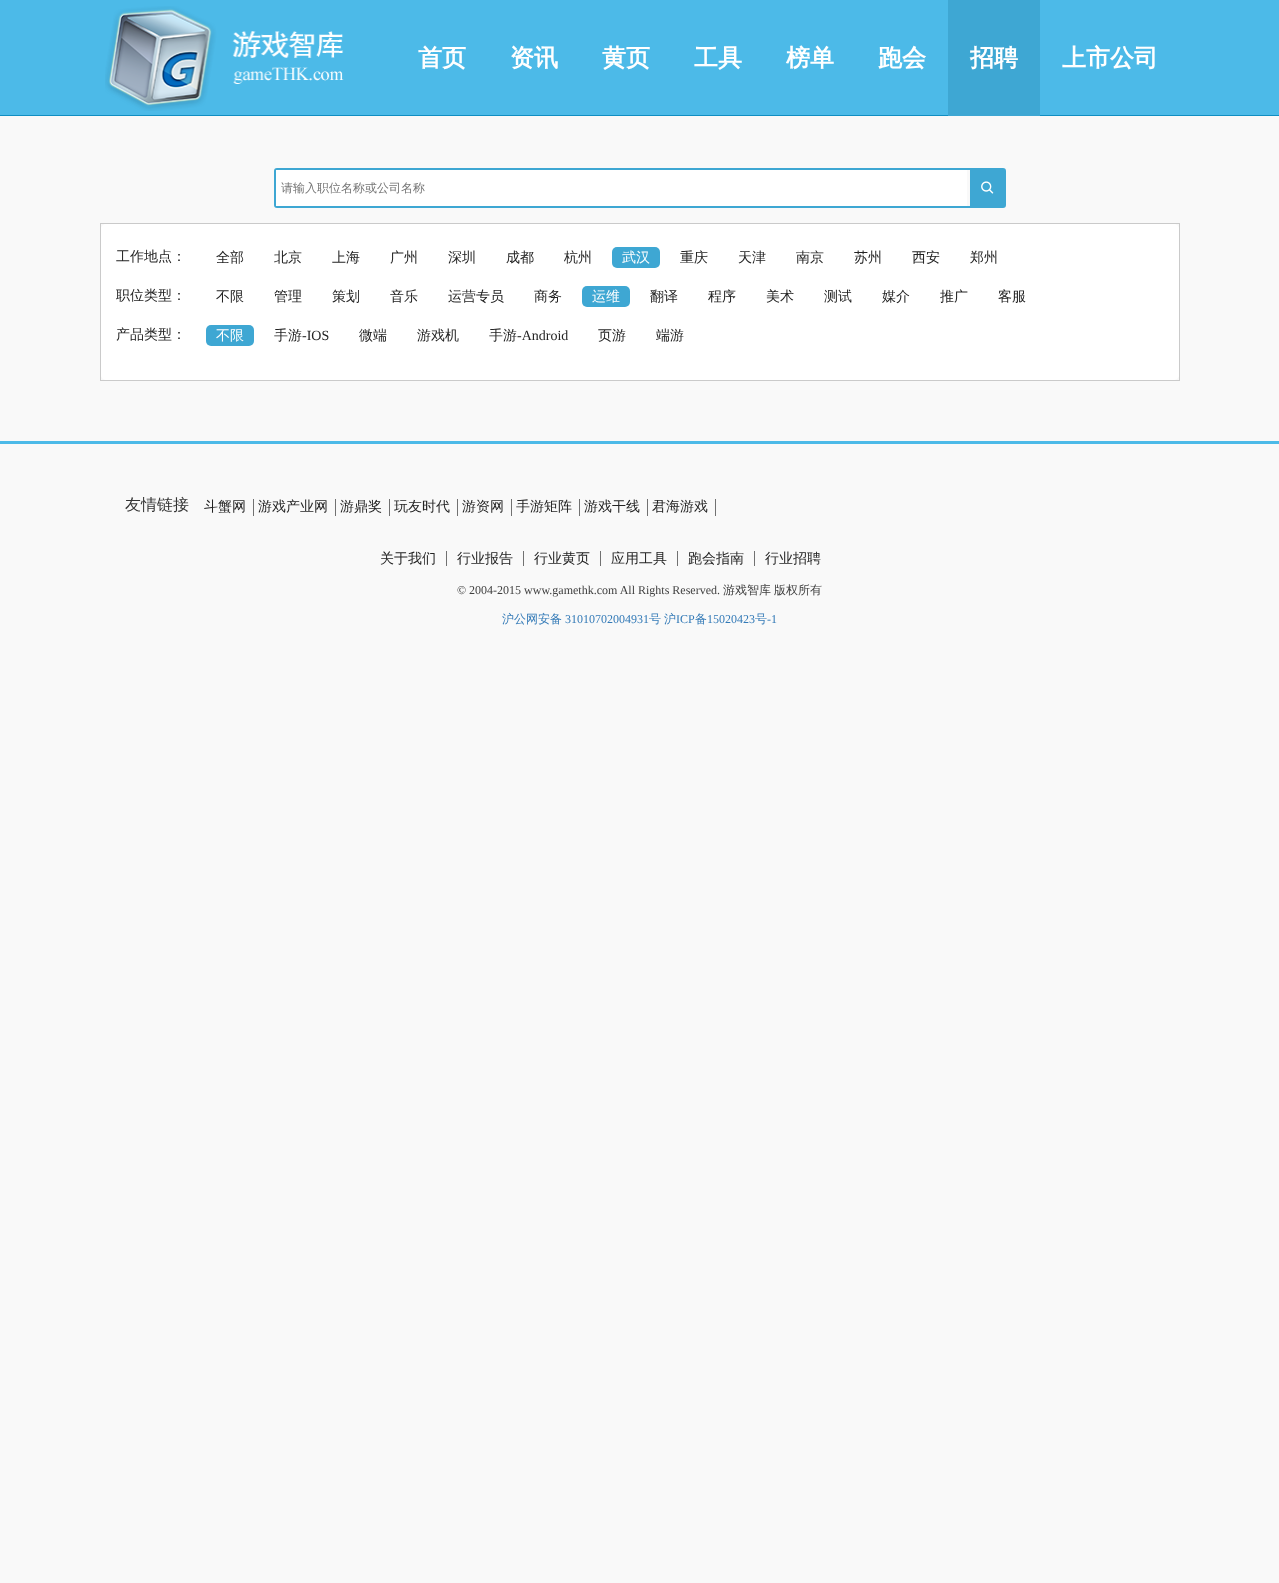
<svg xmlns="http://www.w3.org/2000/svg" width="1279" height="1583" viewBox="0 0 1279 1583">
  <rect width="100%" height="100%" fill="rgb(249,249,249)"/>
  <rect x="0" y="0" width="1279" height="115" fill="rgb(76,186,232)"/>
  <rect x="0" y="115" width="1279" height="1" fill="rgb(16,142,194)"/>
  <image x="105" y="6" width="239" height="105" href="pic1.png"/>
  <g font-family="WenQuanYi Zen Hei" font-size="24" font-weight="bold" fill="rgb(255,255,255)">
    <text x="418" y="66">首页</text>
    <text x="510" y="66">资讯</text>
    <text x="602" y="66">黄页</text>
    <text x="694" y="66">工具</text>
    <text x="786" y="66">榜单</text>
    <text x="878" y="66">跑会</text>
  </g>
  <rect x="948" y="0" width="92" height="116" fill="rgb(62,167,211)"/>
  <g font-family="WenQuanYi Zen Hei" font-size="24" font-weight="bold" fill="rgb(255,255,255)">
    <text x="970" y="66">招聘</text>
    <text x="1062" y="66">上市公司</text>
  </g>
  <rect x="275" y="169" width="730" height="38" rx="2" fill="none" stroke="rgb(62,167,211)" stroke-width="2"/>
  <rect x="276" y="170" width="691" height="36" fill="rgb(255,255,255)"/>
  <text x="281" y="192" font-family="WenQuanYi Zen Hei" font-size="12" font-weight="500" fill="rgb(117,117,117)">请输入职位名称或公司名称</text>
  <rect x="970" y="170" width="34" height="36" fill="rgb(62,167,211)"/>
  <image x="981" y="181" width="13" height="13" href="pic2.png"/>
  <rect x="100.5" y="223.5" width="1079" height="157" fill="none" stroke="rgb(202,202,202)"/>
  <rect x="101" y="224" width="1078" height="156" rx="5" fill="rgb(255,255,255)"/>
  <g font-family="WenQuanYi Zen Hei" font-size="14" font-weight="500" fill="rgb(35,35,35)">
    <text x="116" y="261">工作地点：</text>
    <text x="216" y="262">全部</text>
    <text x="274" y="262">北京</text>
    <text x="332" y="262">上海</text>
    <text x="390" y="262">广州</text>
    <text x="448" y="262">深圳</text>
    <text x="506" y="262">成都</text>
    <text x="564" y="262">杭州</text>
  </g>
  <rect x="612" y="247" width="48" height="21" rx="5" fill="rgb(62,167,211)"/>
  <text x="622" y="262" font-family="WenQuanYi Zen Hei" font-size="14" font-weight="500" fill="rgb(255,255,255)">武汉</text>
  <g font-family="WenQuanYi Zen Hei" font-size="14" font-weight="500" fill="rgb(35,35,35)">
    <text x="680" y="262">重庆</text>
    <text x="738" y="262">天津</text>
    <text x="796" y="262">南京</text>
    <text x="854" y="262">苏州</text>
    <text x="912" y="262">西安</text>
    <text x="970" y="262">郑州</text>
    <text x="116" y="300">职位类型：</text>
    <text x="216" y="301">不限</text>
    <text x="274" y="301">管理</text>
    <text x="332" y="301">策划</text>
    <text x="390" y="301">音乐</text>
    <text x="448" y="301">运营专员</text>
    <text x="534" y="301">商务</text>
  </g>
  <rect x="582" y="286" width="48" height="21" rx="5" fill="rgb(62,167,211)"/>
  <text x="592" y="301" font-family="WenQuanYi Zen Hei" font-size="14" font-weight="500" fill="rgb(255,255,255)">运维</text>
  <g font-family="WenQuanYi Zen Hei" font-size="14" font-weight="500" fill="rgb(35,35,35)">
    <text x="650" y="301">翻译</text>
    <text x="708" y="301">程序</text>
    <text x="766" y="301">美术</text>
    <text x="824" y="301">测试</text>
    <text x="882" y="301">媒介</text>
    <text x="940" y="301">推广</text>
    <text x="998" y="301">客服</text>
    <text x="116" y="339">产品类型：</text>
  </g>
  <rect x="206" y="325" width="48" height="21" rx="5" fill="rgb(62,167,211)"/>
  <text x="216" y="340" font-family="WenQuanYi Zen Hei" font-size="14" font-weight="500" fill="rgb(255,255,255)">不限</text>
  <text x="274" y="340" font-family="WenQuanYi Zen Hei" font-size="14" font-weight="500" fill="rgb(35,35,35)">手游</text>
  <text x="302" y="340" font-family="Liberation Serif" font-size="14" fill="rgb(35,35,35)">-IOS</text>
  <g font-family="WenQuanYi Zen Hei" font-size="14" font-weight="500" fill="rgb(35,35,35)">
    <text x="359" y="340">微端</text>
    <text x="417" y="340">游戏机</text>
    <text x="489" y="340">手游</text>
  </g>
  <text x="517" y="340" font-family="Liberation Serif" font-size="14" fill="rgb(35,35,35)">-Android</text>
  <g font-family="WenQuanYi Zen Hei" font-size="14" font-weight="500" fill="rgb(35,35,35)">
    <text x="598" y="340">页游</text>
    <text x="656" y="340">端游</text>
  </g>
  <rect x="0" y="441" width="1279" height="3" fill="rgb(76,186,232)"/>
  <text x="125" y="510" font-family="WenQuanYi Zen Hei" font-size="16" font-weight="500" fill="rgb(51,51,51)">友情链接</text>
  <rect x="253" y="499" width="1" height="17" fill="rgb(113,113,113)"/>
  <text x="204" y="511" font-family="WenQuanYi Zen Hei" font-size="14" font-weight="500" fill="rgb(35,35,35)">斗蟹网</text>
  <rect x="335" y="499" width="1" height="17" fill="rgb(113,113,113)"/>
  <text x="258" y="511" font-family="WenQuanYi Zen Hei" font-size="14" font-weight="500" fill="rgb(35,35,35)">游戏产业网</text>
  <rect x="389" y="499" width="1" height="17" fill="rgb(113,113,113)"/>
  <text x="340" y="511" font-family="WenQuanYi Zen Hei" font-size="14" font-weight="500" fill="rgb(35,35,35)">游鼎奖</text>
  <rect x="457" y="499" width="1" height="17" fill="rgb(113,113,113)"/>
  <text x="394" y="511" font-family="WenQuanYi Zen Hei" font-size="14" font-weight="500" fill="rgb(35,35,35)">玩友时代</text>
  <rect x="511" y="499" width="1" height="17" fill="rgb(113,113,113)"/>
  <text x="462" y="511" font-family="WenQuanYi Zen Hei" font-size="14" font-weight="500" fill="rgb(35,35,35)">游资网</text>
  <rect x="579" y="499" width="1" height="17" fill="rgb(113,113,113)"/>
  <text x="516" y="511" font-family="WenQuanYi Zen Hei" font-size="14" font-weight="500" fill="rgb(35,35,35)">手游矩阵</text>
  <rect x="647" y="499" width="1" height="17" fill="rgb(113,113,113)"/>
  <text x="584" y="511" font-family="WenQuanYi Zen Hei" font-size="14" font-weight="500" fill="rgb(35,35,35)">游戏干线</text>
  <rect x="715" y="499" width="1" height="17" fill="rgb(113,113,113)"/>
  <g font-family="WenQuanYi Zen Hei" font-size="14" font-weight="500" fill="rgb(35,35,35)">
    <text x="652" y="511">君海游戏</text>
    <text x="380" y="563">关于我们</text>
  </g>
  <rect x="446" y="551" width="1" height="15" fill="rgb(113,113,113)"/>
  <text x="457" y="563" font-family="WenQuanYi Zen Hei" font-size="14" font-weight="500" fill="rgb(35,35,35)">行业报告</text>
  <rect x="523" y="551" width="1" height="15" fill="rgb(113,113,113)"/>
  <text x="534" y="563" font-family="WenQuanYi Zen Hei" font-size="14" font-weight="500" fill="rgb(35,35,35)">行业黄页</text>
  <rect x="600" y="551" width="1" height="15" fill="rgb(113,113,113)"/>
  <text x="611" y="563" font-family="WenQuanYi Zen Hei" font-size="14" font-weight="500" fill="rgb(35,35,35)">应用工具</text>
  <rect x="677" y="551" width="1" height="15" fill="rgb(113,113,113)"/>
  <text x="688" y="563" font-family="WenQuanYi Zen Hei" font-size="14" font-weight="500" fill="rgb(35,35,35)">跑会指南</text>
  <rect x="754" y="551" width="1" height="15" fill="rgb(113,113,113)"/>
  <text x="765" y="563" font-family="WenQuanYi Zen Hei" font-size="14" font-weight="500" fill="rgb(35,35,35)">行业招聘</text>
  <text x="457" y="594" font-family="Liberation Serif" font-size="12" fill="rgb(64,64,64)">© 2004-2015 www.gamethk.com All Rights Reserved.</text>
  <g font-family="WenQuanYi Zen Hei" font-size="12" font-weight="500" fill="rgb(64,64,64)">
    <text x="723" y="594">游戏智库</text>
    <text x="774" y="594">版权所有</text>
  </g>
  <text x="502" y="623" font-family="WenQuanYi Zen Hei" font-size="12" font-weight="500" fill="rgb(51,122,183)">沪公网安备</text>
  <text x="565" y="623" font-family="Liberation Serif" font-size="12" fill="rgb(51,122,183)">31010702004931</text>
  <g font-family="WenQuanYi Zen Hei" font-size="12" font-weight="500" fill="rgb(51,122,183)">
    <text x="649" y="623">号</text>
    <text x="664" y="623">沪</text>
  </g>
  <text x="676" y="623" font-family="Liberation Serif" font-size="12" fill="rgb(51,122,183)">ICP</text>
  <text x="695" y="623" font-family="WenQuanYi Zen Hei" font-size="12" font-weight="500" fill="rgb(51,122,183)">备</text>
  <text x="707" y="623" font-family="Liberation Serif" font-size="12" fill="rgb(51,122,183)">15020423</text>
  <text x="755" y="623" font-family="WenQuanYi Zen Hei" font-size="12" font-weight="500" fill="rgb(51,122,183)">号</text>
  <text x="767" y="623" font-family="Liberation Serif" font-size="12" fill="rgb(51,122,183)">-1</text>
</svg>
